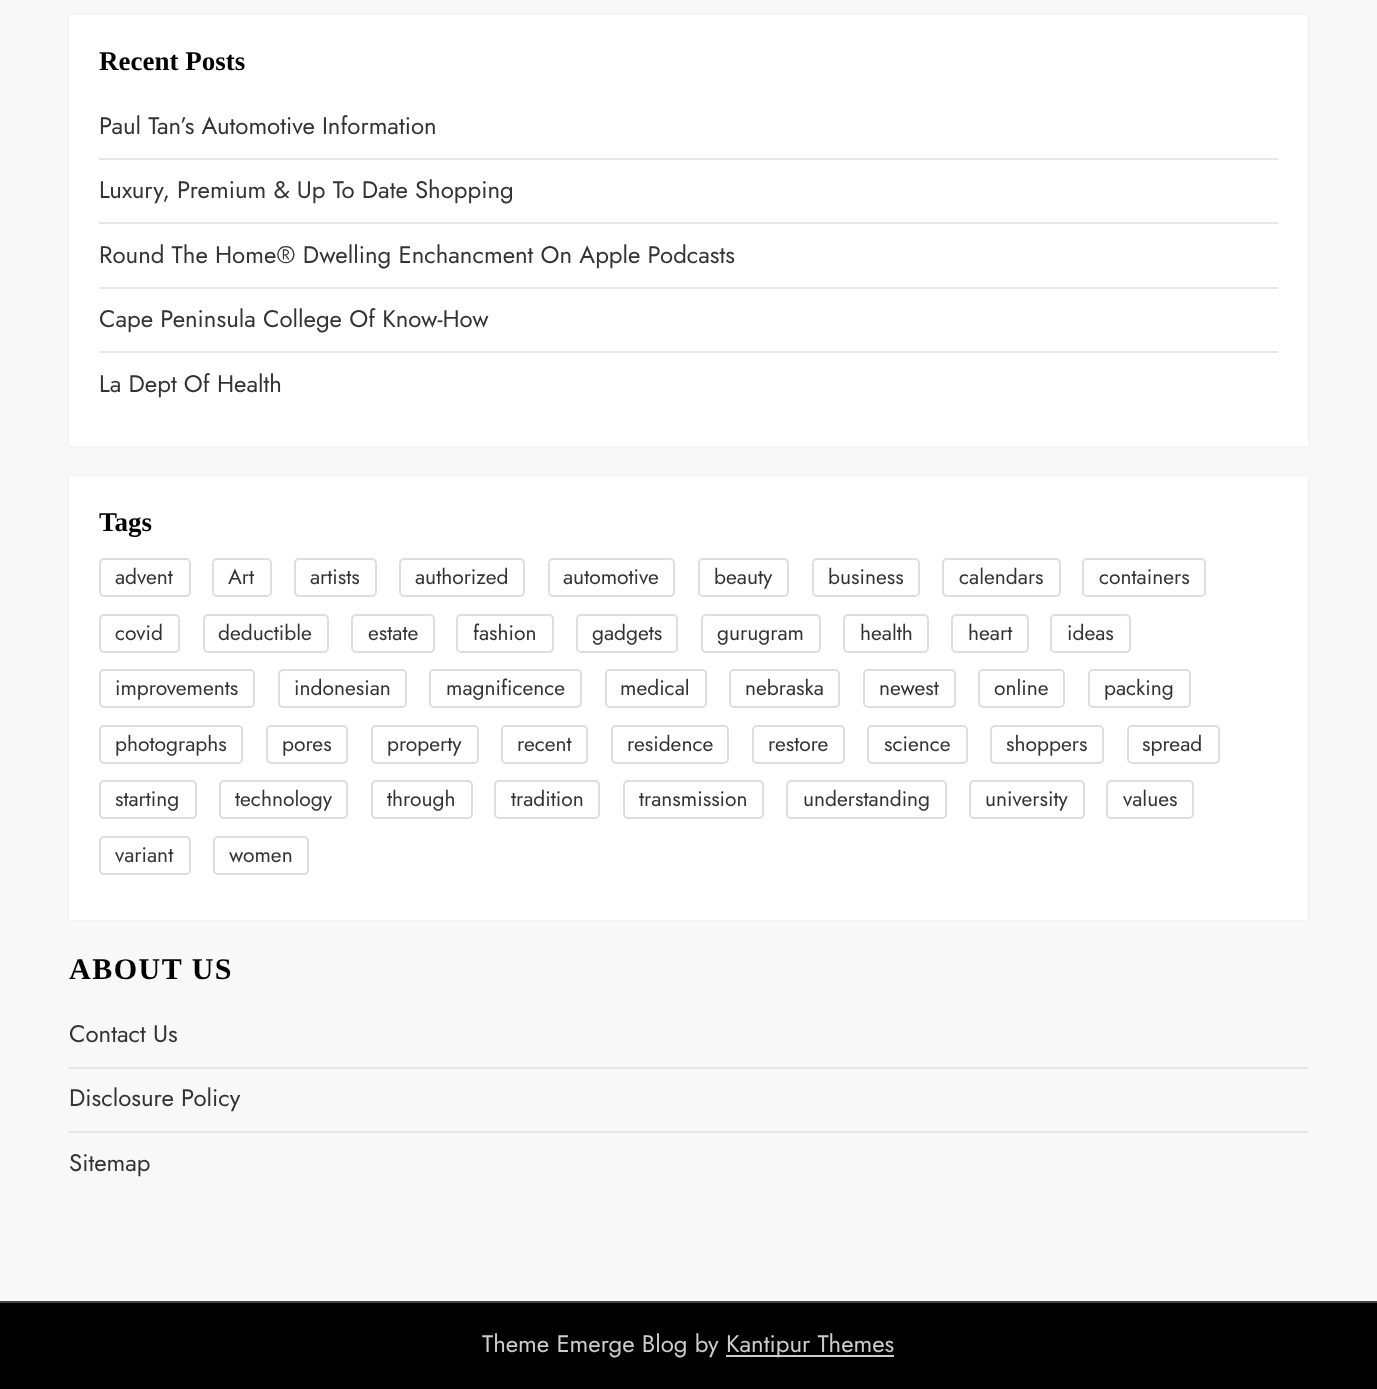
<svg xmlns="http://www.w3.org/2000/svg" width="1377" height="1389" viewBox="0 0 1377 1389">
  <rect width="100%" height="100%" fill="rgb(248,248,248)"/>
  <rect x="69" y="15" width="1239" height="431" fill="rgba(0,0,0,0.06)" filter="blur(1.5px)"/>
  <rect x="69" y="15" width="1239" height="431" fill="rgb(255,255,255)"/>
  <text x="99" y="70" font-family="Liberation Serif" font-size="27" font-weight="bold" fill="rgb(0,0,0)">Recent Posts</text>
  <rect x="99" y="158" width="1179" height="2" fill="rgb(231,231,231)"/>
  <text x="99" y="134" font-family="Jost" font-size="24" fill="rgb(51,51,51)">Paul Tan’s Automotive Information</text>
  <rect x="99" y="222" width="1179" height="2" fill="rgb(231,231,231)"/>
  <text x="99" y="198" font-family="Jost" font-size="24" fill="rgb(51,51,51)">Luxury, Premium &amp; Up To Date Shopping</text>
  <rect x="99" y="287" width="1179" height="2" fill="rgb(231,231,231)"/>
  <text x="99" y="263" font-family="Jost" font-size="24" fill="rgb(51,51,51)">Round The Home® Dwelling Enchancment On Apple Podcasts</text>
  <rect x="99" y="351" width="1179" height="2" fill="rgb(231,231,231)"/>
  <g font-family="Jost" font-size="24" fill="rgb(51,51,51)">
    <text x="99" y="327">Cape Peninsula College Of Know-How</text>
    <text x="99" y="392">La Dept Of Health</text>
  </g>
  <rect x="69" y="476" width="1239" height="444" fill="rgba(0,0,0,0.06)" filter="blur(1.5px)"/>
  <rect x="69" y="476" width="1239" height="444" fill="rgb(255,255,255)"/>
  <text x="99" y="531" font-family="Liberation Serif" font-size="27" font-weight="bold" fill="rgb(0,0,0)">Tags</text>
  <rect x="100" y="559" width="90" height="37" rx="4" fill="none" stroke="rgb(221,221,221)" stroke-width="2"/>
  <text x="115" y="584" font-family="Jost" font-size="21" fill="rgb(51,51,51)">advent</text>
  <rect x="213" y="559" width="58" height="37" rx="4" fill="none" stroke="rgb(221,221,221)" stroke-width="2"/>
  <text x="228" y="584" font-family="Jost" font-size="21" fill="rgb(51,51,51)">Art</text>
  <rect x="295" y="559" width="81" height="37" rx="4" fill="none" stroke="rgb(221,221,221)" stroke-width="2"/>
  <text x="310" y="584" font-family="Jost" font-size="21" fill="rgb(51,51,51)">artists</text>
  <rect x="400" y="559" width="124" height="37" rx="4" fill="none" stroke="rgb(221,221,221)" stroke-width="2"/>
  <text x="415" y="584" font-family="Jost" font-size="21" fill="rgb(51,51,51)">authorized</text>
  <rect x="549" y="559" width="125" height="37" rx="4" fill="none" stroke="rgb(221,221,221)" stroke-width="2"/>
  <text x="563" y="584" font-family="Jost" font-size="21" fill="rgb(51,51,51)">automotive</text>
  <rect x="699" y="559" width="89" height="37" rx="4" fill="none" stroke="rgb(221,221,221)" stroke-width="2"/>
  <text x="714" y="584" font-family="Jost" font-size="21" fill="rgb(51,51,51)">beauty</text>
  <rect x="813" y="559" width="106" height="37" rx="4" fill="none" stroke="rgb(221,221,221)" stroke-width="2"/>
  <text x="828" y="584" font-family="Jost" font-size="21" fill="rgb(51,51,51)">business</text>
  <rect x="943" y="559" width="117" height="37" rx="4" fill="none" stroke="rgb(221,221,221)" stroke-width="2"/>
  <text x="959" y="584" font-family="Jost" font-size="21" fill="rgb(51,51,51)">calendars</text>
  <rect x="1083" y="559" width="122" height="37" rx="4" fill="none" stroke="rgb(221,221,221)" stroke-width="2"/>
  <text x="1099" y="584" font-family="Jost" font-size="21" fill="rgb(51,51,51)">containers</text>
  <rect x="100" y="615" width="79" height="37" rx="4" fill="none" stroke="rgb(221,221,221)" stroke-width="2"/>
  <text x="115" y="640" font-family="Jost" font-size="21" fill="rgb(51,51,51)">covid</text>
  <rect x="204" y="615" width="124" height="37" rx="4" fill="none" stroke="rgb(221,221,221)" stroke-width="2"/>
  <text x="218" y="640" font-family="Jost" font-size="21" fill="rgb(51,51,51)">deductible</text>
  <rect x="352" y="615" width="82" height="37" rx="4" fill="none" stroke="rgb(221,221,221)" stroke-width="2"/>
  <text x="368" y="640" font-family="Jost" font-size="21" fill="rgb(51,51,51)">estate</text>
  <rect x="457" y="615" width="96" height="37" rx="4" fill="none" stroke="rgb(221,221,221)" stroke-width="2"/>
  <text x="473" y="640" font-family="Jost" font-size="21" fill="rgb(51,51,51)">fashion</text>
  <rect x="577" y="615" width="100" height="37" rx="4" fill="none" stroke="rgb(221,221,221)" stroke-width="2"/>
  <text x="592" y="640" font-family="Jost" font-size="21" fill="rgb(51,51,51)">gadgets</text>
  <rect x="702" y="615" width="118" height="37" rx="4" fill="none" stroke="rgb(221,221,221)" stroke-width="2"/>
  <text x="717" y="640" font-family="Jost" font-size="21" fill="rgb(51,51,51)">gurugram</text>
  <rect x="844" y="615" width="84" height="37" rx="4" fill="none" stroke="rgb(221,221,221)" stroke-width="2"/>
  <text x="860" y="640" font-family="Jost" font-size="21" fill="rgb(51,51,51)">health</text>
  <rect x="952" y="615" width="76" height="37" rx="4" fill="none" stroke="rgb(221,221,221)" stroke-width="2"/>
  <text x="968" y="640" font-family="Jost" font-size="21" fill="rgb(51,51,51)">heart</text>
  <rect x="1051" y="615" width="79" height="37" rx="4" fill="none" stroke="rgb(221,221,221)" stroke-width="2"/>
  <text x="1067" y="640" font-family="Jost" font-size="21" fill="rgb(51,51,51)">ideas</text>
  <rect x="100" y="670" width="154" height="37" rx="4" fill="none" stroke="rgb(221,221,221)" stroke-width="2"/>
  <text x="115" y="695" font-family="Jost" font-size="21" fill="rgb(51,51,51)">improvements</text>
  <rect x="279" y="670" width="127" height="37" rx="4" fill="none" stroke="rgb(221,221,221)" stroke-width="2"/>
  <text x="294" y="695" font-family="Jost" font-size="21" fill="rgb(51,51,51)">indonesian</text>
  <rect x="430" y="670" width="151" height="37" rx="4" fill="none" stroke="rgb(221,221,221)" stroke-width="2"/>
  <text x="446" y="695" font-family="Jost" font-size="21" fill="rgb(51,51,51)">magnificence</text>
  <rect x="606" y="670" width="100" height="37" rx="4" fill="none" stroke="rgb(221,221,221)" stroke-width="2"/>
  <text x="620" y="695" font-family="Jost" font-size="21" fill="rgb(51,51,51)">medical</text>
  <rect x="730" y="670" width="109" height="37" rx="4" fill="none" stroke="rgb(221,221,221)" stroke-width="2"/>
  <text x="745" y="695" font-family="Jost" font-size="21" fill="rgb(51,51,51)">nebraska</text>
  <rect x="864" y="670" width="91" height="37" rx="4" fill="none" stroke="rgb(221,221,221)" stroke-width="2"/>
  <text x="879" y="695" font-family="Jost" font-size="21" fill="rgb(51,51,51)">newest</text>
  <rect x="979" y="670" width="85" height="37" rx="4" fill="none" stroke="rgb(221,221,221)" stroke-width="2"/>
  <text x="994" y="695" font-family="Jost" font-size="21" fill="rgb(51,51,51)">online</text>
  <rect x="1089" y="670" width="101" height="37" rx="4" fill="none" stroke="rgb(221,221,221)" stroke-width="2"/>
  <text x="1104" y="695" font-family="Jost" font-size="21" fill="rgb(51,51,51)">packing</text>
  <rect x="100" y="726" width="142" height="37" rx="4" fill="none" stroke="rgb(221,221,221)" stroke-width="2"/>
  <text x="115" y="751" font-family="Jost" font-size="21" fill="rgb(51,51,51)">photographs</text>
  <rect x="267" y="726" width="80" height="37" rx="4" fill="none" stroke="rgb(221,221,221)" stroke-width="2"/>
  <text x="282" y="751" font-family="Jost" font-size="21" fill="rgb(51,51,51)">pores</text>
  <rect x="372" y="726" width="106" height="37" rx="4" fill="none" stroke="rgb(221,221,221)" stroke-width="2"/>
  <text x="387" y="751" font-family="Jost" font-size="21" fill="rgb(51,51,51)">property</text>
  <rect x="502" y="726" width="85" height="37" rx="4" fill="none" stroke="rgb(221,221,221)" stroke-width="2"/>
  <text x="517" y="751" font-family="Jost" font-size="21" fill="rgb(51,51,51)">recent</text>
  <rect x="612" y="726" width="116" height="37" rx="4" fill="none" stroke="rgb(221,221,221)" stroke-width="2"/>
  <text x="627" y="751" font-family="Jost" font-size="21" fill="rgb(51,51,51)">residence</text>
  <rect x="753" y="726" width="91" height="37" rx="4" fill="none" stroke="rgb(221,221,221)" stroke-width="2"/>
  <text x="768" y="751" font-family="Jost" font-size="21" fill="rgb(51,51,51)">restore</text>
  <rect x="868" y="726" width="99" height="37" rx="4" fill="none" stroke="rgb(221,221,221)" stroke-width="2"/>
  <text x="884" y="751" font-family="Jost" font-size="21" fill="rgb(51,51,51)">science</text>
  <rect x="991" y="726" width="112" height="37" rx="4" fill="none" stroke="rgb(221,221,221)" stroke-width="2"/>
  <text x="1006" y="751" font-family="Jost" font-size="21" fill="rgb(51,51,51)">shoppers</text>
  <rect x="1128" y="726" width="91" height="37" rx="4" fill="none" stroke="rgb(221,221,221)" stroke-width="2"/>
  <text x="1142" y="751" font-family="Jost" font-size="21" fill="rgb(51,51,51)">spread</text>
  <rect x="100" y="781" width="96" height="37" rx="4" fill="none" stroke="rgb(221,221,221)" stroke-width="2"/>
  <text x="115" y="806" font-family="Jost" font-size="21" fill="rgb(51,51,51)">starting</text>
  <rect x="220" y="781" width="127" height="37" rx="4" fill="none" stroke="rgb(221,221,221)" stroke-width="2"/>
  <text x="235" y="806" font-family="Jost" font-size="21" fill="rgb(51,51,51)">technology</text>
  <rect x="372" y="781" width="100" height="37" rx="4" fill="none" stroke="rgb(221,221,221)" stroke-width="2"/>
  <text x="387" y="806" font-family="Jost" font-size="21" fill="rgb(51,51,51)">through</text>
  <rect x="495" y="781" width="104" height="37" rx="4" fill="none" stroke="rgb(221,221,221)" stroke-width="2"/>
  <text x="511" y="806" font-family="Jost" font-size="21" fill="rgb(51,51,51)">tradition</text>
  <rect x="624" y="781" width="139" height="37" rx="4" fill="none" stroke="rgb(221,221,221)" stroke-width="2"/>
  <text x="639" y="806" font-family="Jost" font-size="21" fill="rgb(51,51,51)">transmission</text>
  <rect x="787" y="781" width="159" height="37" rx="4" fill="none" stroke="rgb(221,221,221)" stroke-width="2"/>
  <text x="803" y="806" font-family="Jost" font-size="21" fill="rgb(51,51,51)">understanding</text>
  <rect x="970" y="781" width="114" height="37" rx="4" fill="none" stroke="rgb(221,221,221)" stroke-width="2"/>
  <text x="985" y="806" font-family="Jost" font-size="21" fill="rgb(51,51,51)">university</text>
  <rect x="1107" y="781" width="86" height="37" rx="4" fill="none" stroke="rgb(221,221,221)" stroke-width="2"/>
  <text x="1123" y="806" font-family="Jost" font-size="21" fill="rgb(51,51,51)">values</text>
  <rect x="100" y="837" width="90" height="37" rx="4" fill="none" stroke="rgb(221,221,221)" stroke-width="2"/>
  <text x="115" y="862" font-family="Jost" font-size="21" fill="rgb(51,51,51)">variant</text>
  <rect x="214" y="837" width="94" height="37" rx="4" fill="none" stroke="rgb(221,221,221)" stroke-width="2"/>
  <text x="229" y="862" font-family="Jost" font-size="21" fill="rgb(51,51,51)">women</text>
  <text x="69" y="979" font-family="Liberation Serif" font-size="30" font-weight="bold" letter-spacing="1.5" fill="rgb(0,0,0)">ABOUT US</text>
  <rect x="69" y="1067" width="1239" height="2" fill="rgb(231,231,231)"/>
  <text x="69" y="1042" font-family="Jost" font-size="24" fill="rgb(51,51,51)">Contact Us</text>
  <rect x="69" y="1131" width="1239" height="2" fill="rgb(231,231,231)"/>
  <g font-family="Jost" font-size="24" fill="rgb(51,51,51)">
    <text x="69" y="1106">Disclosure Policy</text>
    <text x="69" y="1171">Sitemap</text>
  </g>
  <rect x="0" y="1303" width="1377" height="86" fill="rgb(0,0,0)"/>
  <rect x="0" y="1301" width="1377" height="2" fill="rgb(68,68,68)"/>
  <text x="482" y="1352" font-family="Jost" font-size="24" fill="rgb(204,204,204)">Theme Emerge Blog by</text>
  <rect x="726" y="1355" width="168" height="2" fill="rgb(204,204,204)"/>
  <text x="726" y="1352" font-family="Jost" font-size="24" fill="rgb(204,204,204)">Kantipur Themes</text>
</svg>
